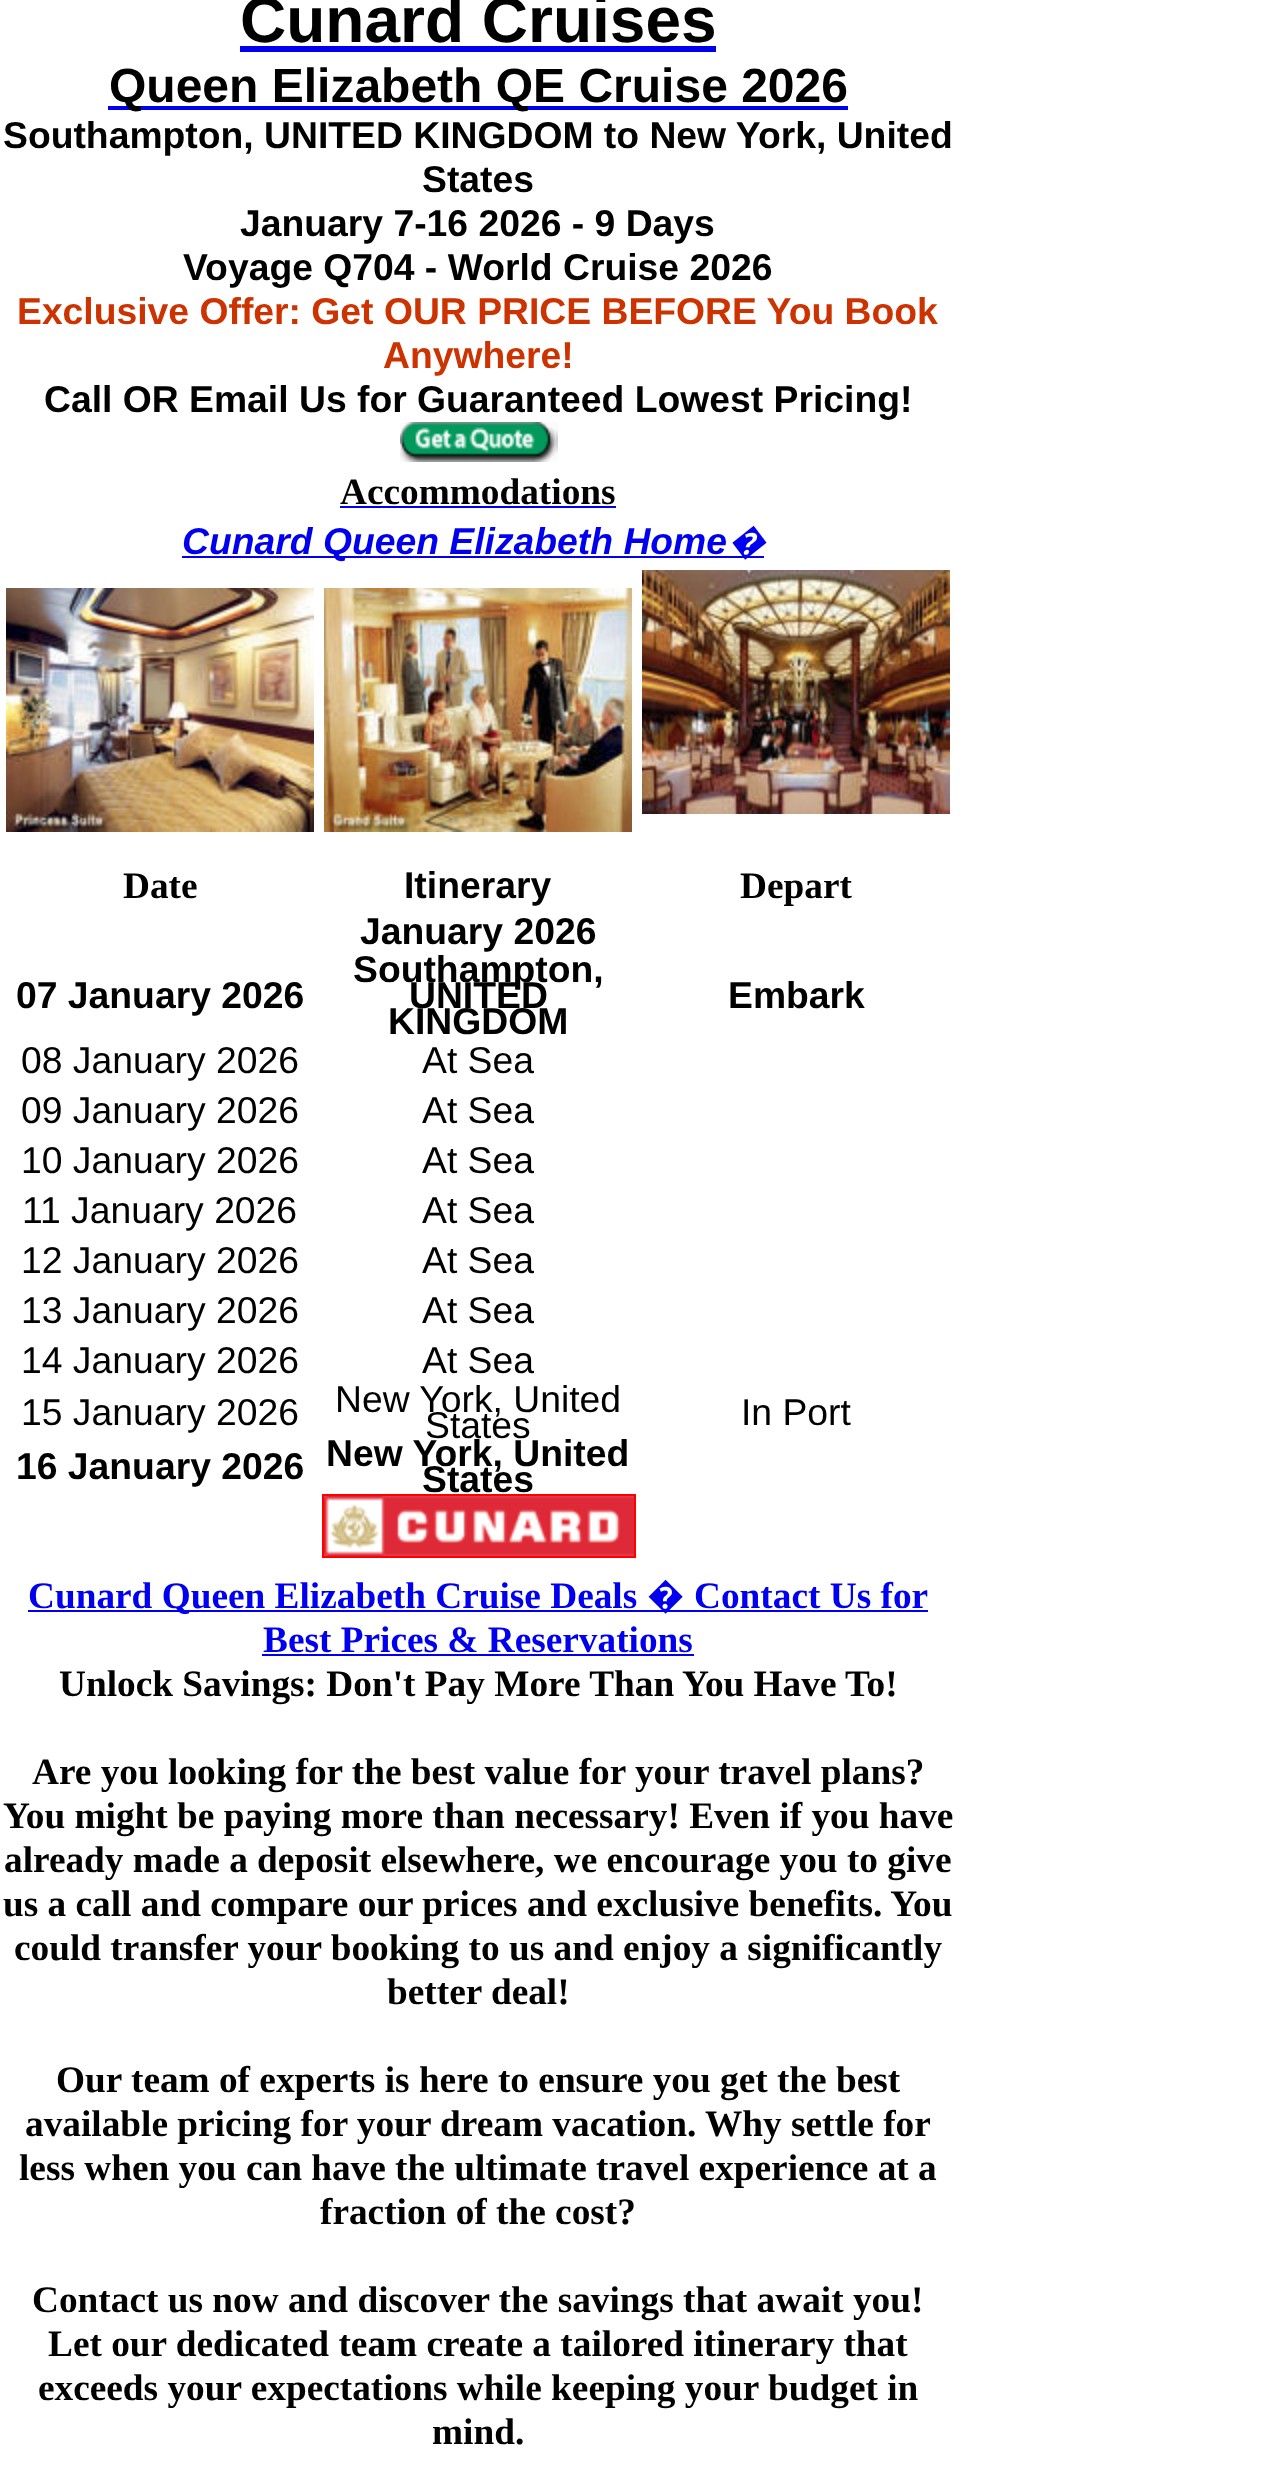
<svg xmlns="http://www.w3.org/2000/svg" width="1269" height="2474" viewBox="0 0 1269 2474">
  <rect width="100%" height="100%" fill="rgb(255,255,255)"/>
  <text x="240" y="42" font-family="Liberation Sans" font-size="64" font-weight="bold" fill="rgb(0,0,0)">Cunard Cruises</text>
  <rect x="240" y="46" width="476" height="6" fill="rgb(0,0,238)"/>
  <rect x="108" y="106" width="740" height="4" fill="rgb(0,0,238)"/>
  <text x="109" y="102" font-family="Liberation Sans" font-size="48" font-weight="bold" fill="rgb(0,0,0)">Queen Elizabeth QE Cruise 2026</text>
  <g font-family="Liberation Sans" font-size="37.3" font-weight="bold" fill="rgb(0,0,0)">
    <text x="3" y="148">Southampton, UNITED KINGDOM to New York, United</text>
    <text x="422" y="192">States</text>
    <text x="240" y="236">January 7-16 2026 - 9 Days</text>
    <text x="183" y="280">Voyage Q704 - World Cruise 2026</text>
  </g>
  <g font-family="Liberation Sans" font-size="37.3" font-weight="bold" fill="rgb(204,51,0)">
    <text x="17" y="324">Exclusive Offer: Get OUR PRICE BEFORE You Book</text>
    <text x="383" y="368">Anywhere!</text>
  </g>
  <text x="44" y="412" font-family="Liberation Sans" font-size="37.3" font-weight="bold" fill="rgb(0,0,0)">Call OR Email Us for Guaranteed Lowest Pricing!</text>
  <image x="400" y="422" width="158" height="40" href="pic1.png"/>
  <text x="340" y="504" font-family="Liberation Serif" font-size="37.3" font-weight="bold" fill="rgb(0,0,0)">Accommodations</text>
  <rect x="340" y="506" width="276" height="2" fill="rgb(0,0,238)"/>
  <rect x="182" y="556" width="582" height="2" fill="rgb(0,0,238)"/>
  <text x="182" y="554" font-family="Liberation Sans" font-size="37.3" font-weight="bold" font-style="italic" fill="rgb(0,0,238)">Cunard Queen Elizabeth Home</text>
  <text x="728" y="554" font-family="Noto Sans" font-size="37.3" font-weight="bold" font-style="italic" fill="rgb(0,0,238)">�</text>
  <image x="6" y="588" width="308" height="244" href="pic2.png"/>
  <image x="324" y="588" width="308" height="244" href="pic3.png"/>
  <image x="642" y="570" width="308" height="244" href="pic4.png"/>
  <text x="123" y="898" font-family="Liberation Serif" font-size="37.3" font-weight="bold" fill="rgb(0,0,0)">Date</text>
  <text x="404" y="898" font-family="Liberation Sans" font-size="37.3" font-weight="bold" fill="rgb(0,0,0)">Itinerary</text>
  <text x="740" y="898" font-family="Liberation Serif" font-size="37.3" font-weight="bold" fill="rgb(0,0,0)">Depart</text>
  <g font-family="Liberation Sans" font-size="37.3" font-weight="bold" fill="rgb(0,0,0)">
    <text x="360" y="944">January 2026</text>
    <text x="16" y="1008">07 January 2026</text>
    <text x="353" y="982">Southampton,</text>
    <text x="409" y="1008">UNITED</text>
    <text x="388" y="1034">KINGDOM</text>
    <text x="728" y="1008">Embark</text>
  </g>
  <g font-family="Liberation Sans" font-size="37.3" fill="rgb(0,0,0)">
    <text x="21" y="1073">08 January 2026</text>
    <text x="422" y="1073">At Sea</text>
    <text x="21" y="1123">09 January 2026</text>
    <text x="422" y="1123">At Sea</text>
    <text x="21" y="1173">10 January 2026</text>
    <text x="422" y="1173">At Sea</text>
    <text x="22" y="1223">11 January 2026</text>
    <text x="422" y="1223">At Sea</text>
    <text x="21" y="1273">12 January 2026</text>
    <text x="422" y="1273">At Sea</text>
    <text x="21" y="1323">13 January 2026</text>
    <text x="422" y="1323">At Sea</text>
    <text x="21" y="1373">14 January 2026</text>
    <text x="422" y="1373">At Sea</text>
    <text x="21" y="1425">15 January 2026</text>
    <text x="335" y="1412">New York, United</text>
    <text x="425" y="1438">States</text>
    <text x="741" y="1425">In Port</text>
  </g>
  <g font-family="Liberation Sans" font-size="37.3" font-weight="bold" fill="rgb(0,0,0)">
    <text x="16" y="1479">16 January 2026</text>
    <text x="326" y="1466">New York, United</text>
    <text x="422" y="1492">States</text>
  </g>
  <rect x="323" y="1495" width="312" height="62" fill="none" stroke="rgb(255,0,0)" stroke-width="2"/>
  <image x="324" y="1496" width="310" height="60" href="pic5.png"/>
  <rect x="28" y="1610" width="900" height="2" fill="rgb(0,0,238)"/>
  <text x="28" y="1608" font-family="Liberation Serif" font-size="37.3" font-weight="bold" fill="rgb(0,0,238)">Cunard Queen Elizabeth Cruise Deals</text>
  <text x="647" y="1608" font-family="Noto Sans" font-size="37.3" font-weight="bold" fill="rgb(0,0,238)">�</text>
  <g font-family="Liberation Serif" font-size="37.3" font-weight="bold" fill="rgb(0,0,238)">
    <text x="694" y="1608">Contact Us for</text>
    <text x="263" y="1652">Best Prices &amp; Reservations</text>
  </g>
  <rect x="262" y="1654" width="432" height="2" fill="rgb(0,0,238)"/>
  <g font-family="Liberation Serif" font-size="37.3" font-weight="bold" fill="rgb(0,0,0)">
    <text x="59" y="1696">Unlock Savings: Don't Pay More Than You Have To!</text>
    <text x="32" y="1784">Are you looking for the best value for your travel plans?</text>
    <text x="3" y="1828">You might be paying more than necessary! Even if you have</text>
    <text x="4" y="1872">already made a deposit elsewhere, we encourage you to give</text>
    <text x="3" y="1916">us a call and compare our prices and exclusive benefits. You</text>
    <text x="14" y="1960">could transfer your booking to us and enjoy a significantly</text>
    <text x="387" y="2004">better deal!</text>
    <text x="56" y="2092">Our team of experts is here to ensure you get the best</text>
    <text x="25" y="2136">available pricing for your dream vacation. Why settle for</text>
    <text x="19" y="2180">less when you can have the ultimate travel experience at a</text>
    <text x="320" y="2224">fraction of the cost?</text>
    <text x="32" y="2312">Contact us now and discover the savings that await you!</text>
    <text x="48" y="2356">Let our dedicated team create a tailored itinerary that</text>
    <text x="38" y="2400">exceeds your expectations while keeping your budget in</text>
    <text x="432" y="2444">mind.</text>
  </g>
</svg>
